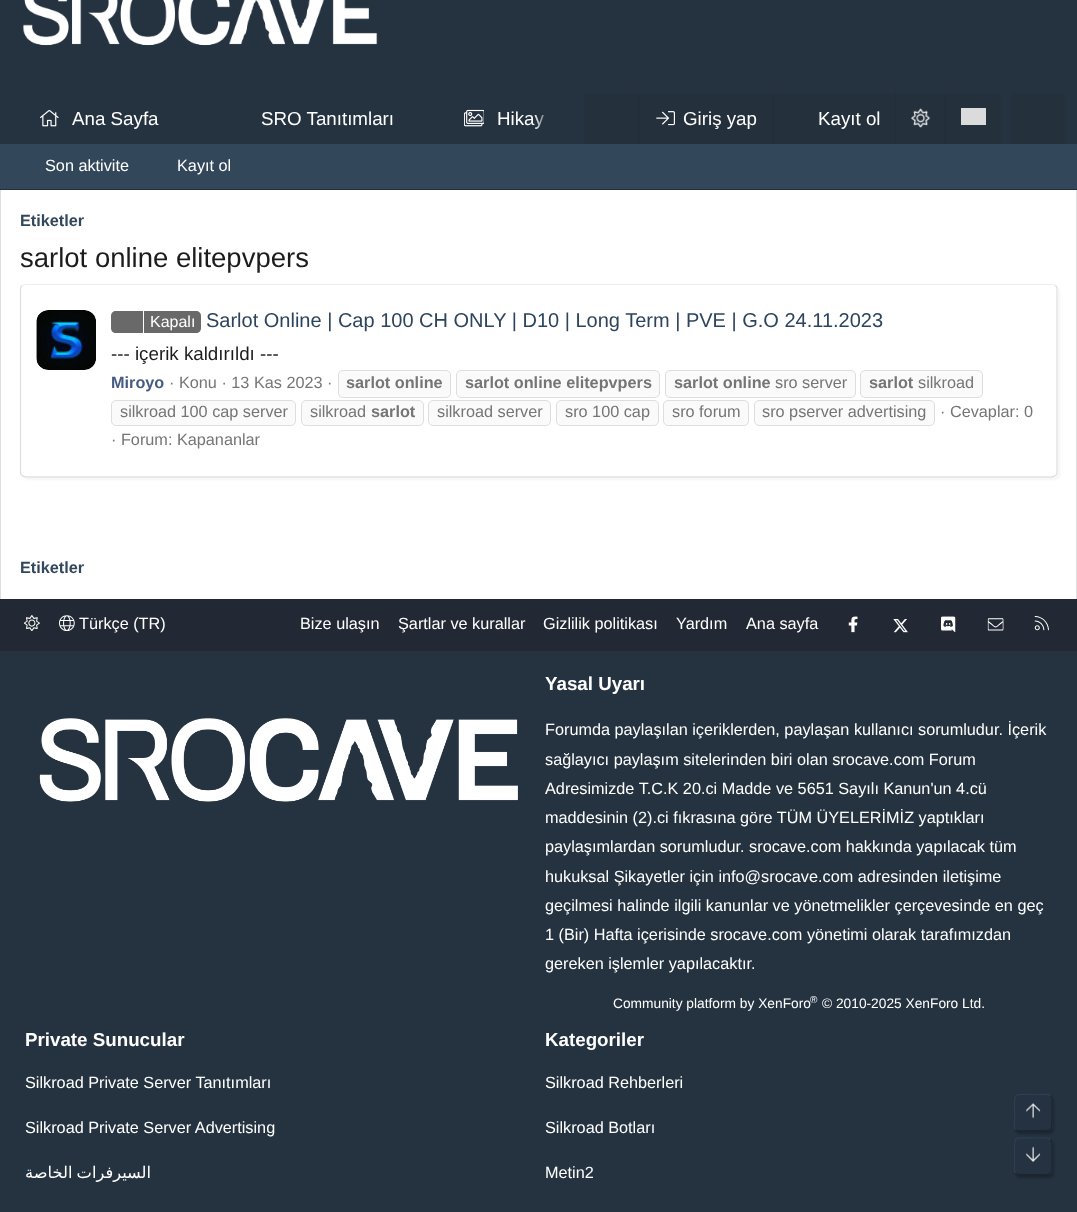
<svg xmlns="http://www.w3.org/2000/svg" width="1077" height="1212" viewBox="0 0 1077 1212">
  <defs>
    <linearGradient id="g1" gradientUnits="userSpaceOnUse" x1="534" y1="118" x2="584" y2="118"><stop offset="0" stop-color="rgb(37,51,65)" stop-opacity="0"/><stop offset="0.33" stop-color="rgb(37,51,65)"/></linearGradient>
    <clipPath id="clip1"><path d="M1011 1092H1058V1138H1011ZM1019 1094H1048C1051 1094 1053 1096 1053 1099V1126C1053 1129 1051 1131 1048 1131H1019C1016 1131 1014 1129 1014 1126V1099C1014 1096 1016 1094 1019 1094Z" clip-rule="evenodd"/></clipPath>
    <clipPath id="clip2"><path d="M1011 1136H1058V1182H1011ZM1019 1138H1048C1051 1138 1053 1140 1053 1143V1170C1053 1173 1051 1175 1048 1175H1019C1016 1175 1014 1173 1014 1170V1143C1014 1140 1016 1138 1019 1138Z" clip-rule="evenodd"/></clipPath>
  </defs>
  <rect width="100%" height="100%" fill="rgb(37,51,65)"/>
  <image x="23" y="0" width="355" height="46" href="pic1.png"/>
  <image x="40" y="110" width="19" height="17" href="pic2.png"/>
  <g font-family="Liberation Sans" font-size="18.75" fill="rgb(255,255,255)">
    <text x="72" y="125">Ana Sayfa</text>
    <text x="261" y="125">SRO Tanıtımları</text>
  </g>
  <image x="464" y="109" width="20" height="18" href="pic3.png"/>
  <text x="497" y="125" font-family="Liberation Sans" font-size="18.75" fill="rgb(255,255,255)">Hikay</text>
  <rect x="534" y="115" width="10" height="14" fill="url(#g1)"/>
  <path d="M589 93H996C999 93 1001 95 1001 98V144H584V98C584 95 586 93 589 93Z" fill="rgb(36,48,59)"/>
  <rect x="638" y="93" width="1" height="51" fill="rgb(35,45,54)"/>
  <image x="656" y="111" width="19" height="15" href="pic4.png"/>
  <text x="683" y="125" font-family="Liberation Sans" font-size="18.75" fill="rgb(255,255,255)">Giriş yap</text>
  <rect x="773" y="93" width="1" height="51" fill="rgb(35,45,54)"/>
  <text x="818" y="125" font-family="Liberation Sans" font-size="18.75" fill="rgb(255,255,255)">Kayıt ol</text>
  <rect x="895" y="93" width="1" height="51" fill="rgb(35,45,54)"/>
  <image x="911" y="108" width="20" height="20" href="pic5.png"/>
  <rect x="945" y="93" width="1" height="51" fill="rgb(35,45,54)"/>
  <rect x="961" y="108" width="25" height="17" fill="rgb(135,135,135)" filter="blur(0.5px)"/>
  <rect x="961" y="108" width="25" height="17" fill="rgb(219,219,219)"/>
  <path d="M1016 93H1060C1063 93 1065 95 1065 98V144H1011V98C1011 95 1013 93 1016 93Z" fill="rgb(36,48,59)"/>
  <rect x="0" y="144" width="1077" height="45" fill="rgb(51,71,91)"/>
  <rect x="0" y="189" width="1077" height="1" fill="rgb(33,46,59)"/>
  <g font-family="Liberation Sans" font-size="16.25" fill="rgb(255,255,255)">
    <text x="45" y="171">Son aktivite</text>
    <text x="177" y="171">Kayıt ol</text>
  </g>
  <rect x="1" y="190" width="1075" height="409" fill="rgb(255,255,255)"/>
  <rect x="1076" y="190" width="1" height="409" fill="rgb(222,222,222)"/>
  <rect x="0" y="190" width="1" height="409" fill="rgb(222,222,222)"/>
  <text x="20" y="226" font-family="Liberation Sans" font-size="16.25" font-weight="bold" fill="rgb(51,71,91)">Etiketler</text>
  <text x="20" y="267" font-family="Liberation Sans" font-size="27.5" fill="rgb(28,28,28)">sarlot online elitepvpers</text>
  <rect x="23" y="286" width="1037" height="194" rx="5" fill="rgba(0,0,0,0.04)" filter="blur(1px)"/>
  <rect x="20" y="284" width="1038" height="194" rx="5" fill="rgb(255,255,255)"/>
  <path d="M22 285.5L25 284.5H1052.5L1055.5 285.5" fill="none" stroke="rgb(237,237,237)" stroke-width="1.2"/>
  <path d="M1055.5 285.5C1056.5 286.5 1057 287.5 1057 289V472.5C1057 473.5 1056.5 475 1055.5 475.5" fill="none" stroke="rgb(222,222,222)" stroke-width="1.2"/>
  <path d="M1055.5 475.5L1052.5 477H25L22 475.5" fill="none" stroke="rgb(212,212,212)" stroke-width="1.2"/>
  <path d="M22 475.5C21 475 20.5 473.5 20.5 472.5V289C20.5 287.5 21 286.5 22 285.5" fill="none" stroke="rgb(222,222,222)" stroke-width="1.2"/>
  <image x="36" y="310" width="60" height="60" href="pic6.png"/>
  <path d="M144 311H196C199 311 201 313 201 316V328C201 331 199 333 196 333H144Z" fill="rgb(105,105,105)"/>
  <text x="150" y="327" font-family="Liberation Sans" font-size="16" fill="rgb(255,255,255)">Kapalı</text>
  <path d="M116 311H143V333H116C113 333 111 331 111 328V316C111 313 113 311 116 311Z" fill="rgb(105,105,105)"/>
  <text x="206" y="327" font-family="Liberation Sans" font-size="20" fill="rgb(45,68,93)">Sarlot Online | Cap 100 CH ONLY | D10 | Long Term | PVE | G.O 24.11.2023</text>
  <text x="111" y="360" font-family="Liberation Sans" font-size="18.75" fill="rgb(28,28,28)">--- içerik kaldırıldı ---</text>
  <text x="111" y="388" font-family="Liberation Sans" font-size="16.25" font-weight="bold" fill="rgb(70,91,131)">Miroyo</text>
  <rect x="338.5" y="370.5" width="112" height="27" rx="4.5" fill="rgb(250,250,250)" stroke="rgb(222,222,222)"/>
  <text x="346" y="388" font-family="Liberation Sans" font-size="16.25" font-weight="bold" fill="rgb(117,117,117)">sarlot online</text>
  <rect x="456.5" y="370.5" width="203" height="27" rx="4.5" fill="rgb(250,250,250)" stroke="rgb(222,222,222)"/>
  <text x="465" y="388" font-family="Liberation Sans" font-size="16.25" font-weight="bold" fill="rgb(117,117,117)">sarlot online elitepvpers</text>
  <rect x="665.5" y="370.5" width="190" height="27" rx="4.5" fill="rgb(250,250,250)" stroke="rgb(222,222,222)"/>
  <text x="674" y="388" font-family="Liberation Sans" font-size="16.25" font-weight="bold" fill="rgb(117,117,117)">sarlot online</text>
  <text x="775" y="388" font-family="Liberation Sans" font-size="16.25" fill="rgb(117,117,117)">sro server</text>
  <rect x="860.5" y="370.5" width="122" height="27" rx="4.5" fill="rgb(250,250,250)" stroke="rgb(222,222,222)"/>
  <text x="869" y="388" font-family="Liberation Sans" font-size="16.25" font-weight="bold" fill="rgb(117,117,117)">sarlot</text>
  <text x="918" y="388" font-family="Liberation Sans" font-size="16.25" fill="rgb(117,117,117)">silkroad</text>
  <rect x="111.5" y="400.5" width="184" height="25" rx="4.5" fill="rgb(250,250,250)" stroke="rgb(222,222,222)"/>
  <text x="120" y="417" font-family="Liberation Sans" font-size="16.25" fill="rgb(117,117,117)">silkroad 100 cap server</text>
  <rect x="301.5" y="400.5" width="122" height="25" rx="4.5" fill="rgb(250,250,250)" stroke="rgb(222,222,222)"/>
  <text x="310" y="417" font-family="Liberation Sans" font-size="16.25" fill="rgb(117,117,117)">silkroad</text>
  <text x="371" y="417" font-family="Liberation Sans" font-size="16.25" font-weight="bold" fill="rgb(117,117,117)">sarlot</text>
  <rect x="428.5" y="400.5" width="122" height="25" rx="4.5" fill="rgb(250,250,250)" stroke="rgb(222,222,222)"/>
  <text x="437" y="417" font-family="Liberation Sans" font-size="16.25" fill="rgb(117,117,117)">silkroad server</text>
  <rect x="556.5" y="400.5" width="102" height="25" rx="4.5" fill="rgb(250,250,250)" stroke="rgb(222,222,222)"/>
  <text x="565" y="417" font-family="Liberation Sans" font-size="16.25" fill="rgb(117,117,117)">sro 100 cap</text>
  <rect x="663.5" y="400.5" width="85" height="25" rx="4.5" fill="rgb(250,250,250)" stroke="rgb(222,222,222)"/>
  <text x="672" y="417" font-family="Liberation Sans" font-size="16.25" fill="rgb(117,117,117)">sro forum</text>
  <rect x="754.5" y="400.5" width="180" height="25" rx="4.5" fill="rgb(250,250,250)" stroke="rgb(222,222,222)"/>
  <g font-family="Liberation Sans" font-size="16.25" fill="rgb(117,117,117)">
    <text x="762" y="417">sro pserver advertising</text>
    <text x="169" y="388">· Konu · 13 Kas 2023 ·</text>
    <text x="940" y="417">· Cevaplar: 0</text>
    <text x="111" y="445">· Forum: Kapananlar</text>
  </g>
  <text x="20" y="573" font-family="Liberation Sans" font-size="16.25" font-weight="bold" fill="rgb(51,71,91)">Etiketler</text>
  <rect x="0" y="599" width="1077" height="52" fill="rgb(35,41,52)"/>
  <image x="24" y="615" width="16" height="16" href="pic7.png"/>
  <image x="59" y="615" width="16" height="16" href="pic8.png"/>
  <g font-family="Liberation Sans" font-size="16.25" fill="rgb(255,255,255)">
    <text x="79" y="629">Türkçe (TR)</text>
    <text x="300" y="629">Bize ulaşın</text>
    <text x="398" y="629">Şartlar ve kurallar</text>
    <text x="543" y="629">Gizlilik politikası</text>
    <text x="676" y="629">Yardım</text>
    <text x="746" y="629">Ana sayfa</text>
  </g>
  <image x="848" y="616" width="10" height="17" href="pic9.png"/>
  <image x="893" y="619" width="15" height="14" href="pic10.png"/>
  <image x="941" y="616" width="15" height="17" href="pic11.png"/>
  <image x="987" y="618" width="17" height="13" href="pic12.png"/>
  <image x="1034" y="616" width="15" height="15" href="pic13.png"/>
  <image x="39" y="718" width="479" height="84" href="pic14.png"/>
  <text x="545" y="690" font-family="Liberation Sans" font-size="18.75" font-weight="bold" fill="rgb(255,255,255)">Yasal Uyarı</text>
  <g font-family="Liberation Sans" font-size="16.25" fill="rgb(255,255,255)">
    <text>
      <tspan x="545" y="735">Forumda paylaşılan içeriklerden, paylaşan kullanıcı sorumludur. İçerik</tspan>
      <tspan x="545" y="765">sağlayıcı paylaşım sitelerinden biri olan srocave.com Forum</tspan>
      <tspan x="545" y="794">Adresimizde T.C.K 20.ci Madde ve 5651 Sayılı Kanun'un 4.cü</tspan>
      <tspan x="545" y="823">maddesinin (2).ci fıkrasına göre TÜM ÜYELERİMİZ yaptıkları</tspan>
      <tspan x="545" y="852">paylaşımlardan sorumludur. srocave.com hakkında yapılacak tüm</tspan>
      <tspan x="545" y="882">hukuksal Şikayetler için info@srocave.com adresinden iletişime</tspan>
      <tspan x="545" y="911">geçilmesi halinde ilgili kanunlar ve yönetmelikler çerçevesinde en geç</tspan>
      <tspan x="545" y="940">1 (Bir) Hafta içerisinde srocave.com yönetimi olarak tarafımızdan</tspan>
      <tspan x="545" y="969">gereken işlemler yapılacaktır.</tspan>
    </text>
  </g>
  <text x="613" y="1008" font-family="Liberation Sans" font-size="13.75" fill="rgb(255,255,255)">Community platform by XenForo</text>
  <text x="810" y="1003" font-family="Liberation Sans" font-size="10" fill="rgb(255,255,255)">®</text>
  <text x="822" y="1008" font-family="Liberation Sans" font-size="13.75" fill="rgb(255,255,255)">© 2010-2025 XenForo Ltd.</text>
  <text x="25" y="1046" font-family="Liberation Sans" font-size="18.75" font-weight="bold" fill="rgb(255,255,255)">Private Sunucular</text>
  <g font-family="Liberation Sans" font-size="16.25" fill="rgb(255,255,255)">
    <text x="25" y="1088">Silkroad Private Server Tanıtımları</text>
    <text x="25" y="1133">Silkroad Private Server Advertising</text>
  </g>
  <text x="151" y="1178" word-spacing="-1" font-family="DejaVu Sans" font-size="16.25" direction="rtl" fill="rgb(255,255,255)">السيرفرات الخاصة</text>
  <text x="545" y="1046" font-family="Liberation Sans" font-size="18.75" font-weight="bold" fill="rgb(255,255,255)">Kategoriler</text>
  <g font-family="Liberation Sans" font-size="16.25" fill="rgb(255,255,255)">
    <text x="545" y="1088">Silkroad Rehberleri</text>
    <text x="545" y="1133">Silkroad Botları</text>
    <text x="545" y="1178">Metin2</text>
  </g>
  <g clip-path="url(#clip1)">
    <rect x="1015" y="1096" width="39" height="38" rx="5" fill="rgba(0,0,0,0.25)" filter="blur(1px)"/>
  </g>
  <rect x="1014" y="1094" width="39" height="37" rx="5" fill="rgba(37,51,65,0.75)"/>
  <path d="M1050.5 1095.5C1052.5 1097.5 1052 1101 1052 1103.5V1112.5C1052 1133.5 1054.5 1130.5 1033 1130.5H1023.5C1021 1130.5 1017.5 1131.5 1015.5 1129.5" fill="none" stroke="rgb(28,38,49)" stroke-width="1.2"/>
  <path d="M1015.5 1129.5C1013.5 1127.5 1014.5 1124 1014.5 1121.5V1112.5C1014.5 1091.5 1012 1094.5 1033 1094.5H1042.5C1045 1094.5 1048.5 1093.5 1050.5 1095.5" fill="none" stroke="rgb(46,63,82)" stroke-width="1.2"/>
  <image x="1026" y="1103" width="15" height="16" href="pic15.png"/>
  <g clip-path="url(#clip2)">
    <rect x="1015" y="1140" width="39" height="38" rx="5" fill="rgba(0,0,0,0.25)" filter="blur(1px)"/>
  </g>
  <rect x="1014" y="1138" width="39" height="37" rx="5" fill="rgba(37,51,65,0.75)"/>
  <path d="M1050.5 1139.5C1052.5 1141.5 1052 1144.5 1052 1147V1156C1052 1177.5 1054.5 1174.5 1033 1174.5H1023.5C1021 1174.5 1017.5 1175 1015.5 1173" fill="none" stroke="rgb(28,38,49)" stroke-width="1.2"/>
  <path d="M1015.5 1173C1013.5 1171 1014.5 1168 1014.5 1165.5V1156C1014.5 1135 1012 1138 1033 1138H1042.5C1045 1138 1048.5 1137.5 1050.5 1139.5" fill="none" stroke="rgb(46,63,82)" stroke-width="1.2"/>
  <image x="1026" y="1146" width="15" height="16" href="pic16.png"/>
</svg>
